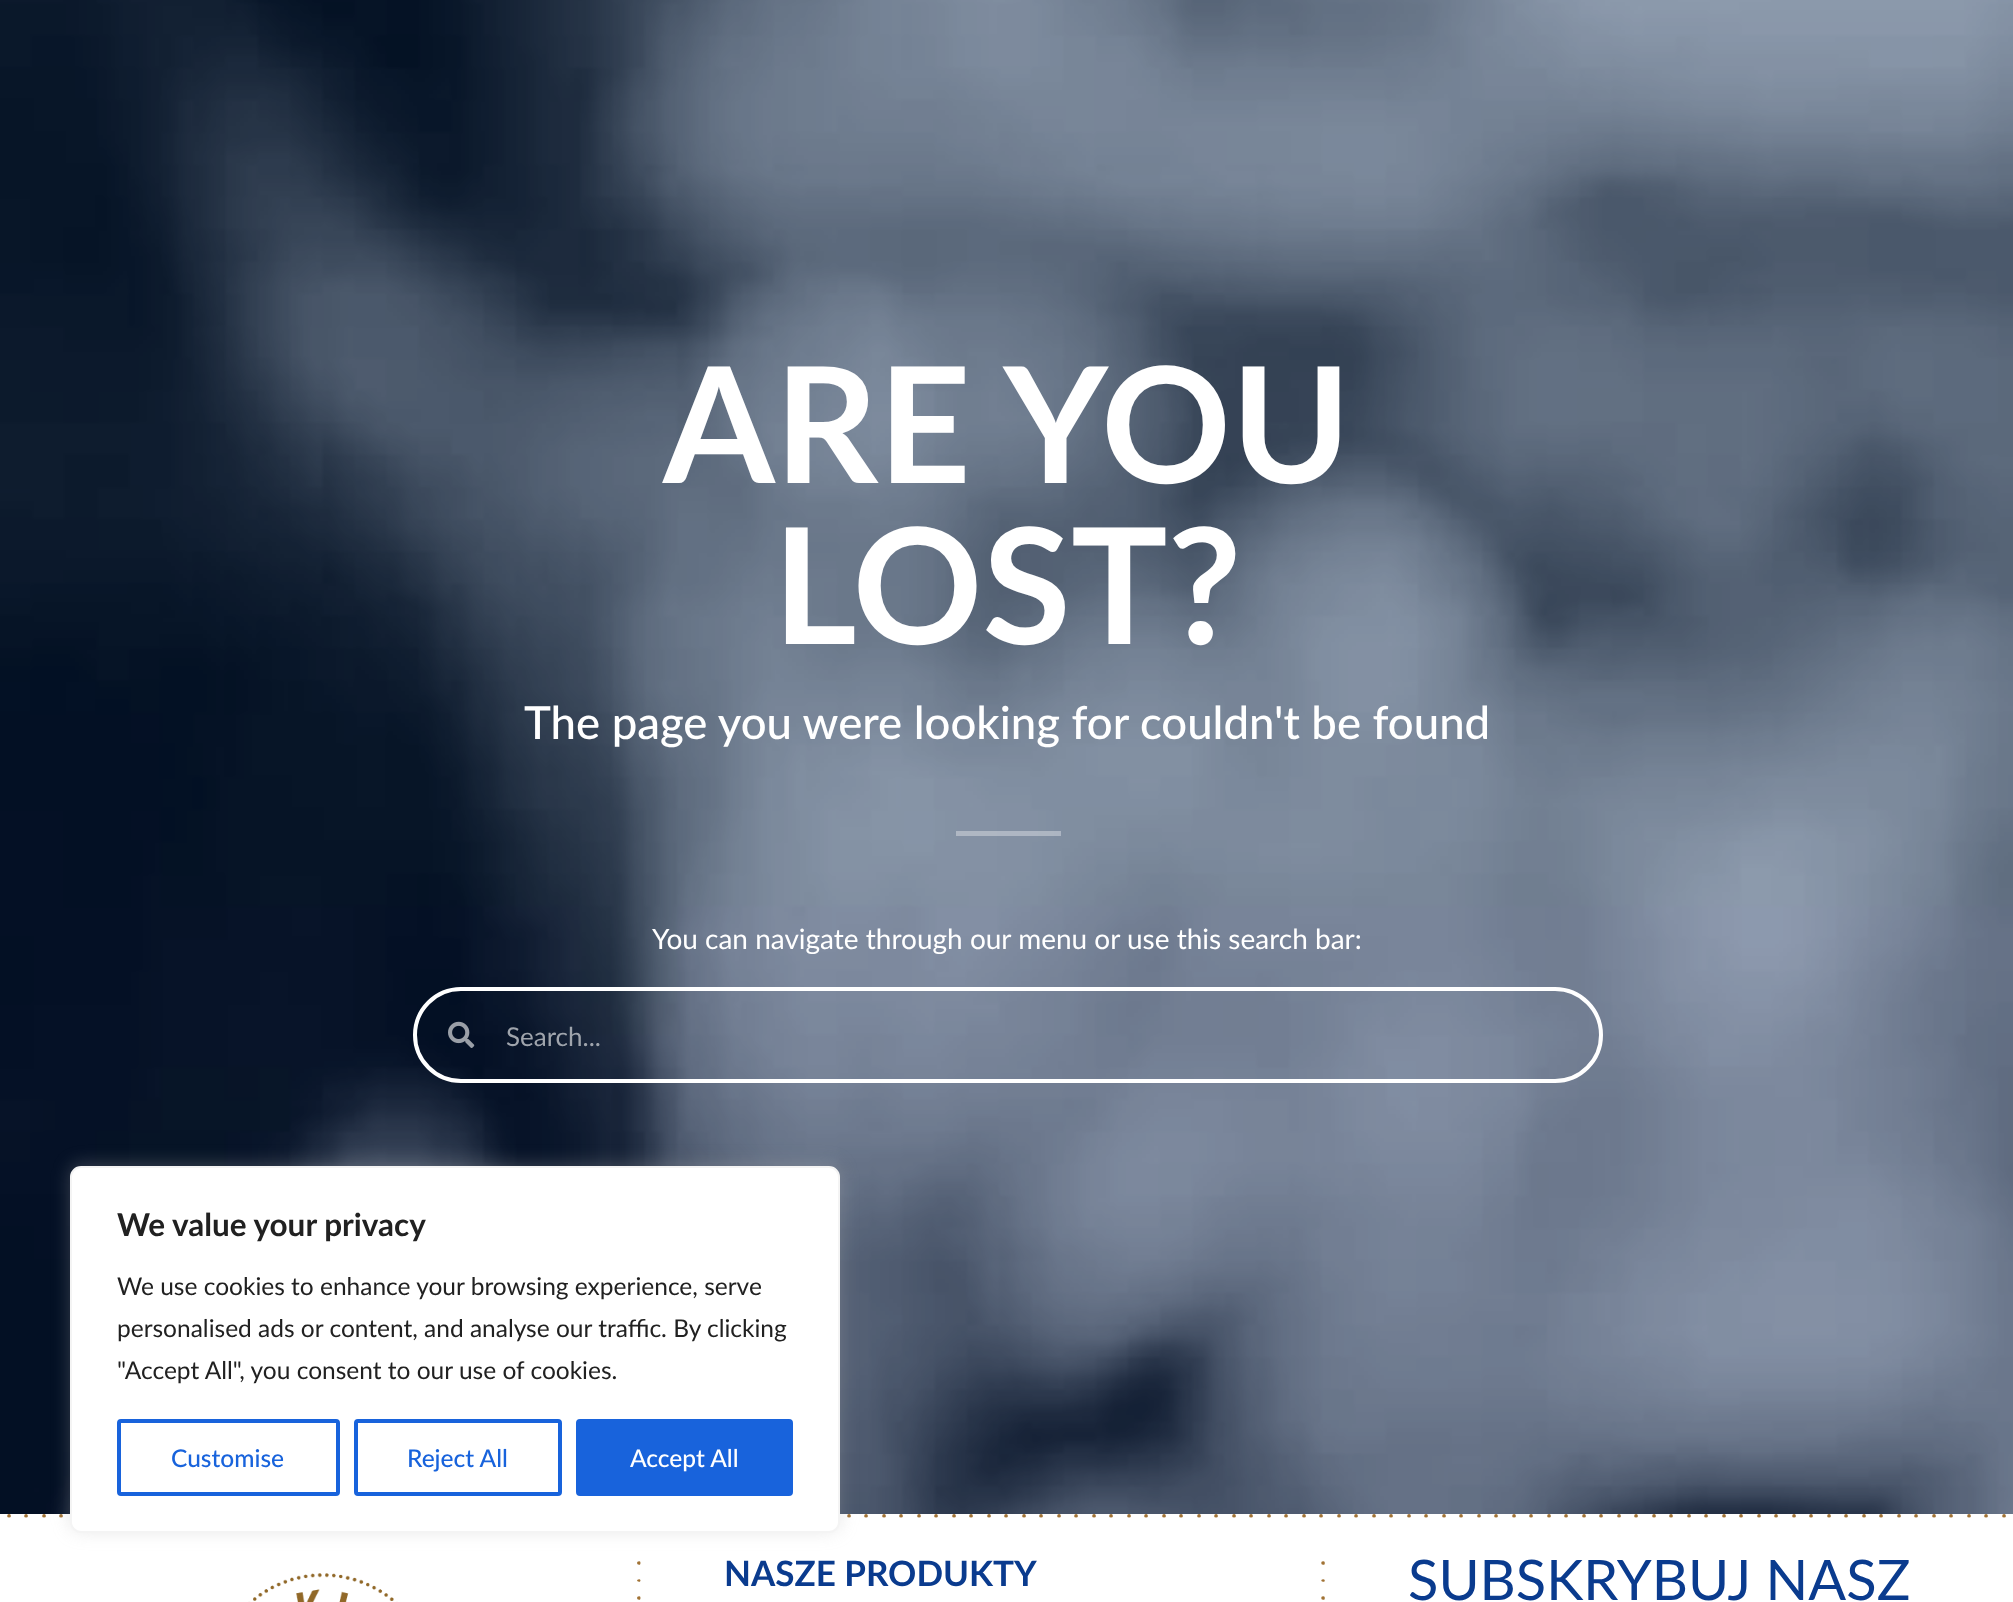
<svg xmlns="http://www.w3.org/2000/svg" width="2013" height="1602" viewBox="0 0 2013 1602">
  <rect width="100%" height="100%" fill="rgb(255,255,255)"/>
  <image x="0" y="0" width="2013" height="1514" href="pic1.png"/>
  <g font-family="Lato" font-size="161" font-weight="bold" fill="rgb(255,255,255)">
    <text x="663" y="483">ARE YOU</text>
    <text x="773" y="644">LOST?</text>
  </g>
  <text x="524" y="739" font-family="Lato" font-size="45.5" font-weight="500" fill="rgb(255,255,255)">The page you were looking for couldn't be found</text>
  <rect x="956" y="831" width="105" height="5" fill="rgba(255,255,255,0.35)"/>
  <text x="652" y="949" font-family="Lato" font-size="28" fill="rgb(255,255,255)">You can navigate through our menu or use this search bar:</text>
  <rect x="415" y="989" width="1186" height="92" rx="46" fill="none" stroke="rgb(255,255,255)" stroke-width="4"/>
  <image x="448" y="1021" width="27" height="27" href="pic2.png"/>
  <text x="506" y="1046" font-family="Lato" font-size="26" fill="rgb(159,164,172)">Search...</text>
  <image x="7" y="1514" width="1999" height="4" href="pic3.png"/>
  <rect x="70" y="1164" width="770" height="367" rx="11" fill="rgba(172,171,171,0.3)" filter="blur(9px)"/>
  <rect x="71" y="1167" width="768" height="365" rx="10" fill="rgb(255,255,255)" stroke="rgb(244,244,244)" stroke-width="2"/>
  <text x="117" y="1236" font-family="Lato" font-size="31.5" font-weight="bold" fill="rgb(33,33,33)">We value your privacy</text>
  <g font-family="Lato" font-size="24.5" fill="rgb(33,33,33)">
    <text>
      <tspan x="117" y="1295">We use cookies to enhance your browsing experience, serve</tspan>
      <tspan x="117" y="1337">personalised ads or content, and analyse our traffic. By clicking</tspan>
      <tspan x="117" y="1379">"Accept All", you consent to our use of cookies.</tspan>
    </text>
  </g>
  <rect x="119" y="1421" width="219" height="73" rx="2" fill="none" stroke="rgb(24,99,220)" stroke-width="4"/>
  <text x="171" y="1467" font-family="Lato" font-size="24.5" font-weight="500" fill="rgb(24,99,220)">Customise</text>
  <rect x="356" y="1421" width="204" height="73" rx="2" fill="none" stroke="rgb(24,99,220)" stroke-width="4"/>
  <text x="407" y="1467" font-family="Lato" font-size="24.5" font-weight="500" fill="rgb(24,99,220)">Reject All</text>
  <rect x="578" y="1421" width="213" height="73" rx="2" fill="rgb(24,99,220)" stroke="rgb(24,99,220)" stroke-width="4"/>
  <text x="630" y="1467" font-family="Lato" font-size="24.5" font-weight="500" fill="rgb(255,255,255)">Accept All</text>
  <image x="248" y="1573" width="150" height="29" href="pic4.png"/>
  <image x="637" y="1561" width="4" height="39" href="pic5.png"/>
  <text x="724" y="1586" font-family="Lato" font-size="35" font-weight="bold" fill="rgb(10,59,142)">NASZE PRODUKTY</text>
  <image x="1321" y="1561" width="4" height="39" href="pic6.png"/>
  <text x="1408" y="1600" font-family="Lato" font-size="56" fill="rgb(10,59,142)">SUBSKRYBUJ NASZ</text>
</svg>
